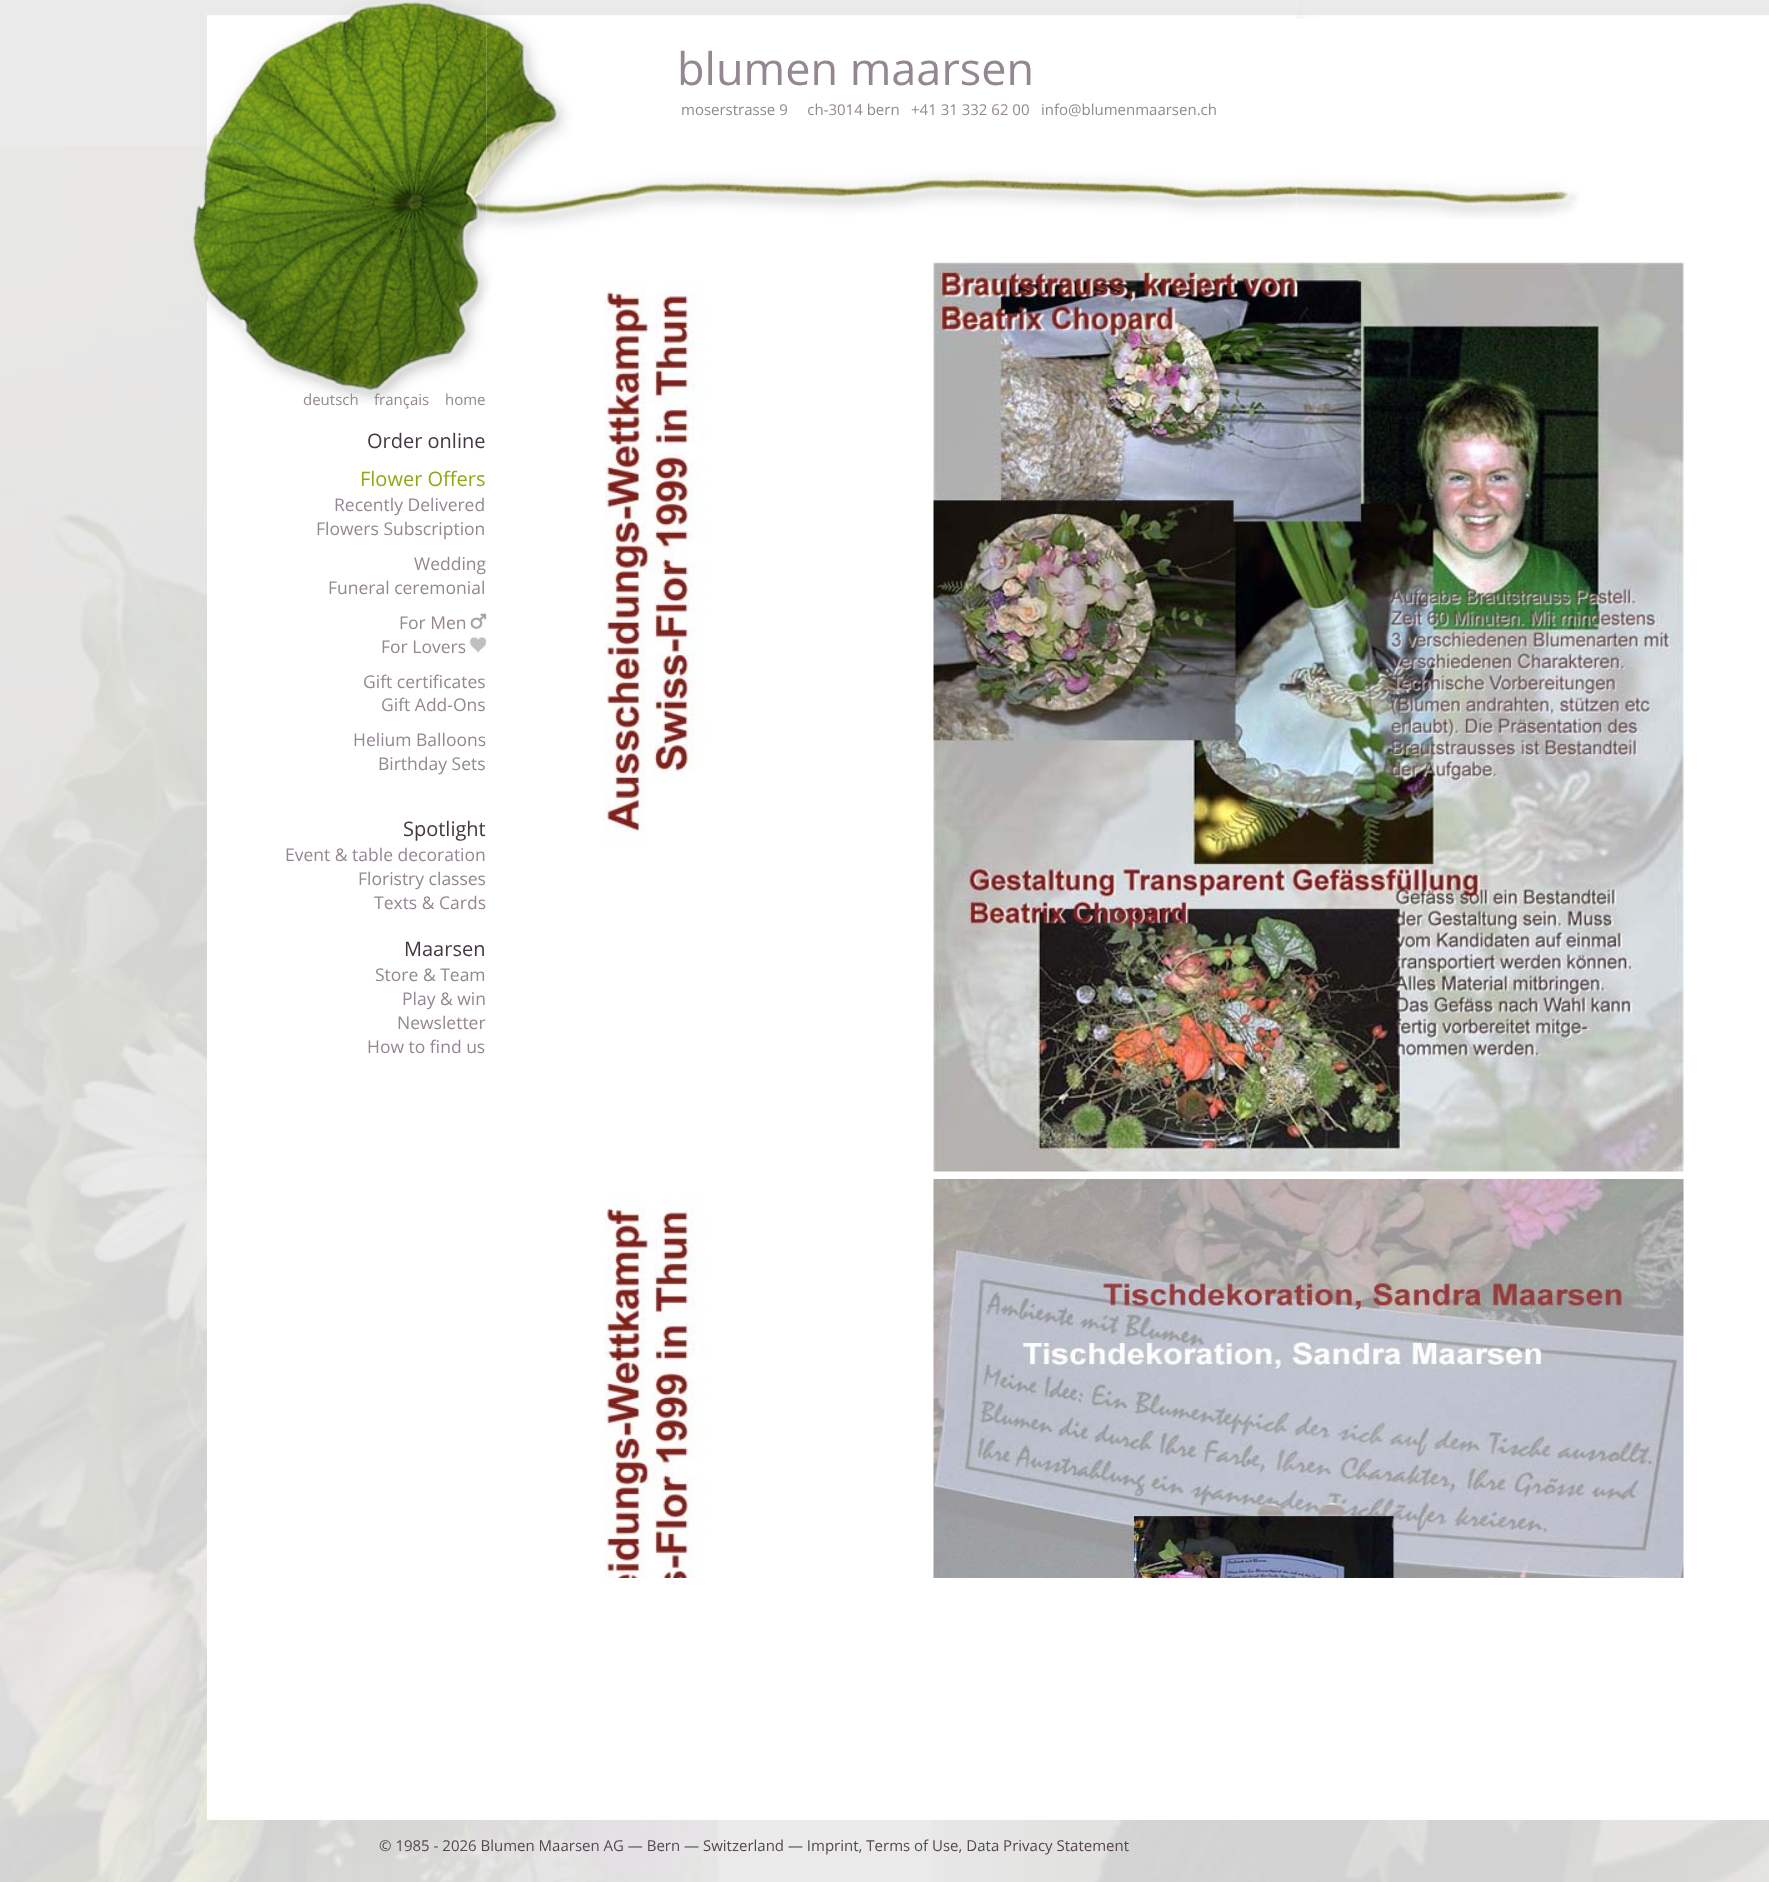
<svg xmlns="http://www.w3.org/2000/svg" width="1769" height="1882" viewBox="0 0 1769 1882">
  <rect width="100%" height="100%" fill="rgb(234,234,234)"/>
  <image x="0" y="146" width="718" height="1736" href="pic8.png"/>
  <rect x="486" y="0" width="1283" height="1820" fill="rgb(255,255,255)"/>
  <image x="1296" y="0" width="473" height="219" href="pic4.png"/>
  <rect x="207" y="14" width="279" height="1806" fill="rgb(255,255,255)"/>
  <image x="191" y="0" width="296" height="404" href="pic5.png"/>
  <image x="486" y="0" width="811" height="281" href="pic1.png"/>
  <text x="677" y="85" font-family="Open Sans" font-size="45" fill="rgb(148,135,146)">blumen maarsen</text>
  <g font-family="Open Sans" font-size="15" fill="rgb(148,135,146)">
    <text x="681" y="115" xml:space="preserve">moserstrasse 9     ch-3014 bern</text>
    <text x="911" y="115">+41 31 332 62 00</text>
    <text x="1041" y="115">info@blumenmaarsen.ch</text>
  </g>
  <image x="475" y="276" width="16" height="31" href="pic2.png"/>
  <image x="604" y="262" width="1080" height="1316" href="pic3.png"/>
  <g font-family="Open Sans" font-size="15" fill="rgb(148,135,146)">
    <text x="303" y="405">deutsch</text>
    <text x="374" y="405">français</text>
    <text x="445" y="405">home</text>
  </g>
  <text x="367" y="448" font-family="Open Sans" font-size="20" fill="rgb(68,55,66)">Order online</text>
  <text x="360" y="486" font-family="Open Sans" font-size="20" fill="rgb(141,169,22)">Flower Offers</text>
  <g font-family="Open Sans" font-size="17.5" fill="rgb(148,135,146)">
    <text x="334" y="511">Recently Delivered</text>
    <text x="316" y="535">Flowers Subscription</text>
    <text x="414" y="570">Wedding</text>
    <text x="328" y="594">Funeral ceremonial</text>
    <text x="399" y="629">For Men</text>
  </g>
  <image x="470" y="613" width="17" height="16" href="pic6.png"/>
  <text x="381" y="653" font-family="Open Sans" font-size="17.5" fill="rgb(148,135,146)">For Lovers</text>
  <image x="469" y="637" width="18" height="16" href="pic7.png"/>
  <g font-family="Open Sans" font-size="17.5" fill="rgb(148,135,146)">
    <text x="363" y="688">Gift certificates</text>
    <text x="381" y="711">Gift Add-Ons</text>
    <text x="353" y="746">Helium Balloons</text>
    <text x="378" y="770">Birthday Sets</text>
  </g>
  <text x="403" y="836" font-family="Open Sans" font-size="20" fill="rgb(68,55,66)">Spotlight</text>
  <g font-family="Open Sans" font-size="17.5" fill="rgb(148,135,146)">
    <text x="285" y="861">Event &amp; table decoration</text>
    <text x="358" y="885">Floristry classes</text>
    <text x="374" y="909">Texts &amp; Cards</text>
  </g>
  <text x="404" y="956" font-family="Open Sans" font-size="20" fill="rgb(68,55,66)">Maarsen</text>
  <g font-family="Open Sans" font-size="17.5" fill="rgb(148,135,146)">
    <text x="375" y="981">Store &amp; Team</text>
    <text x="402" y="1005">Play &amp; win</text>
    <text x="397" y="1029">Newsletter</text>
    <text x="367" y="1053">How to find us</text>
  </g>
  <image x="932" y="1820" width="837" height="62" href="pic9.png"/>
  <text x="379" y="1851" font-family="Open Sans" font-size="15" fill="rgb(84,71,82)">© 1985 - 2026 Blumen Maarsen AG — Bern — Switzerland — Imprint, Terms of Use, Data Privacy Statement</text>
</svg>
